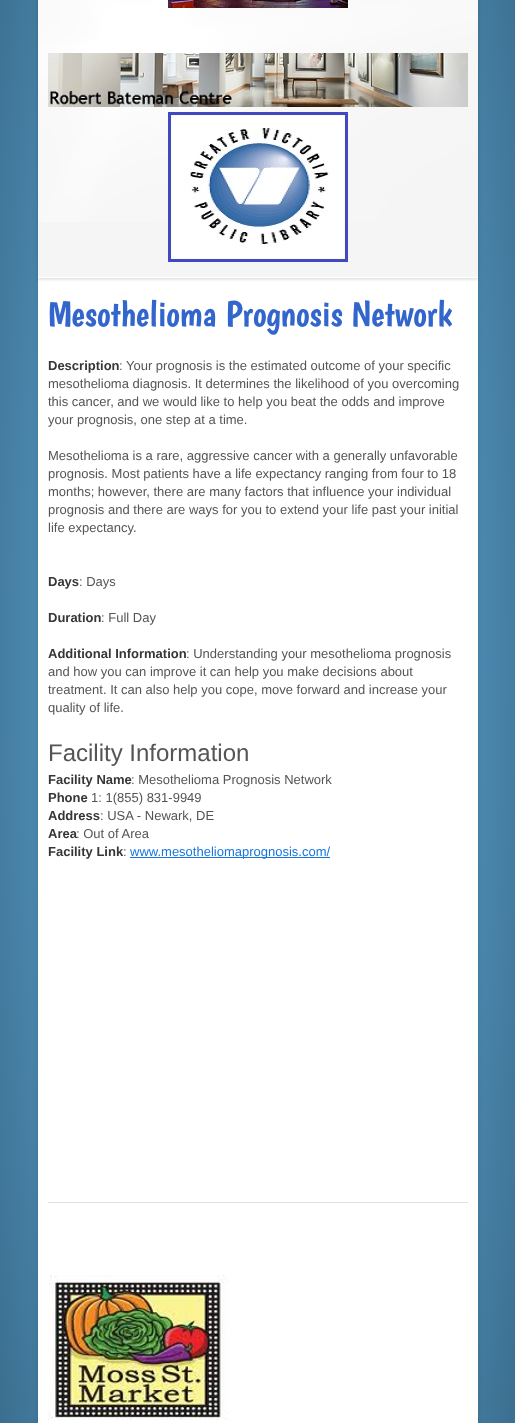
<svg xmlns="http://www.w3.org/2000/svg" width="515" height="1423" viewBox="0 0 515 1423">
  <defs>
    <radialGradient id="g1" gradientUnits="userSpaceOnUse" cx="0" cy="0" r="1" gradientTransform="matrix(364 0 0 1667 258 662)"><stop offset="0" stop-color="rgb(115,201,255)"/><stop offset="1" stop-color="rgb(49,94,123)"/></radialGradient>
  </defs>
  <rect width="100%" height="100%" fill="rgb(255,255,255)"/>
  <rect x="0" y="0" width="515" height="1423" fill="url(#g1)"/>
  <rect x="38" y="-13" width="440" height="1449" rx="5" fill="rgba(0,0,0,0.1)" filter="blur(2.5px)"/>
  <rect x="38" y="278" width="440" height="1145" fill="rgb(255,255,255)"/>
  <rect x="38" y="-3" width="440" height="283" fill="rgba(0,0,0,0.1)" filter="blur(1px)"/>
  <rect x="38" y="0" width="440" height="277" fill="rgb(245,245,245)"/>
  <image x="38" y="0" width="440" height="222" href="pic1.png"/>
  <rect x="38" y="277" width="440" height="1" fill="rgb(255,255,255)"/>
  <image x="168" y="0" width="180" height="8" href="pic2.png"/>
  <image x="48" y="53" width="420" height="54" href="pic3.png"/>
  <image x="168" y="112" width="180" height="150" href="pic4.png"/>
  <text x="48" y="326" font-family="Boogaloo" font-size="36" fill="rgb(51,102,204)">Mesothelioma Prognosis Network</text>
  <text x="48" y="370" font-family="Liberation Sans" font-size="13" font-weight="bold" fill="rgb(54,54,54)">Description</text>
  <g font-family="Liberation Sans" font-size="13" fill="rgb(85,85,85)">
    <text x="119" y="370">: Your prognosis is the estimated outcome of your specific</text>
    <text>
      <tspan x="48" y="388">mesothelioma diagnosis. It determines the likelihood of you overcoming</tspan>
      <tspan x="48" y="406">this cancer, and we would like to help you beat the odds and improve</tspan>
      <tspan x="48" y="424">your prognosis, one step at a time.</tspan>
    </text>
    <text>
      <tspan x="48" y="460">Mesothelioma is a rare, aggressive cancer with a generally unfavorable</tspan>
      <tspan x="48" y="478">prognosis. Most patients have a life expectancy ranging from four to 18</tspan>
      <tspan x="48" y="496">months; however, there are many factors that influence your individual</tspan>
      <tspan x="48" y="514">prognosis and there are ways for you to extend your life past your initial</tspan>
      <tspan x="48" y="532">life expectancy.</tspan>
    </text>
  </g>
  <text x="48" y="586" font-family="Liberation Sans" font-size="13" font-weight="bold" fill="rgb(54,54,54)">Days</text>
  <text x="79" y="586" font-family="Liberation Sans" font-size="13" fill="rgb(85,85,85)">: Days</text>
  <text x="48" y="622" font-family="Liberation Sans" font-size="13" font-weight="bold" fill="rgb(54,54,54)">Duration</text>
  <text x="101" y="622" font-family="Liberation Sans" font-size="13" fill="rgb(85,85,85)">: Full Day</text>
  <text x="48" y="658" font-family="Liberation Sans" font-size="13" font-weight="bold" fill="rgb(54,54,54)">Additional Information</text>
  <g font-family="Liberation Sans" font-size="13" fill="rgb(85,85,85)">
    <text x="186" y="658">: Understanding your mesothelioma prognosis</text>
    <text>
      <tspan x="48" y="676">and how you can improve it can help you make decisions about</tspan>
      <tspan x="48" y="694">treatment. It can also help you cope, move forward and increase your</tspan>
      <tspan x="48" y="712">quality of life.</tspan>
    </text>
  </g>
  <text x="48" y="761" font-family="Liberation Sans" font-size="24" fill="rgb(85,85,85)">Facility Information</text>
  <text x="48" y="784" font-family="Liberation Sans" font-size="13" font-weight="bold" fill="rgb(54,54,54)">Facility Name</text>
  <text x="131" y="784" font-family="Liberation Sans" font-size="13" fill="rgb(85,85,85)">: Mesothelioma Prognosis Network</text>
  <text x="48" y="802" font-family="Liberation Sans" font-size="13" font-weight="bold" fill="rgb(54,54,54)">Phone</text>
  <text x="91" y="802" font-family="Liberation Sans" font-size="13" fill="rgb(85,85,85)">1: 1(855) 831-9949</text>
  <text x="48" y="820" font-family="Liberation Sans" font-size="13" font-weight="bold" fill="rgb(54,54,54)">Address</text>
  <text x="100" y="820" font-family="Liberation Sans" font-size="13" fill="rgb(85,85,85)">: USA - Newark, DE</text>
  <text x="48" y="838" font-family="Liberation Sans" font-size="13" font-weight="bold" fill="rgb(54,54,54)">Area</text>
  <text x="76" y="838" font-family="Liberation Sans" font-size="13" fill="rgb(85,85,85)">: Out of Area</text>
  <text x="48" y="856" font-family="Liberation Sans" font-size="13" font-weight="bold" fill="rgb(54,54,54)">Facility Link</text>
  <text x="123" y="856" font-family="Liberation Sans" font-size="13" fill="rgb(85,85,85)">:</text>
  <rect x="130" y="857" width="200" height="1" fill="rgb(21,118,223)"/>
  <text x="130" y="856" font-family="Liberation Sans" font-size="13" fill="rgb(21,118,223)">www.mesotheliomaprognosis.com/</text>
  <rect x="48" y="1202" width="420" height="1" fill="rgb(225,225,225)"/>
  <image x="48" y="1275" width="180" height="145" href="pic5.png"/>
</svg>
